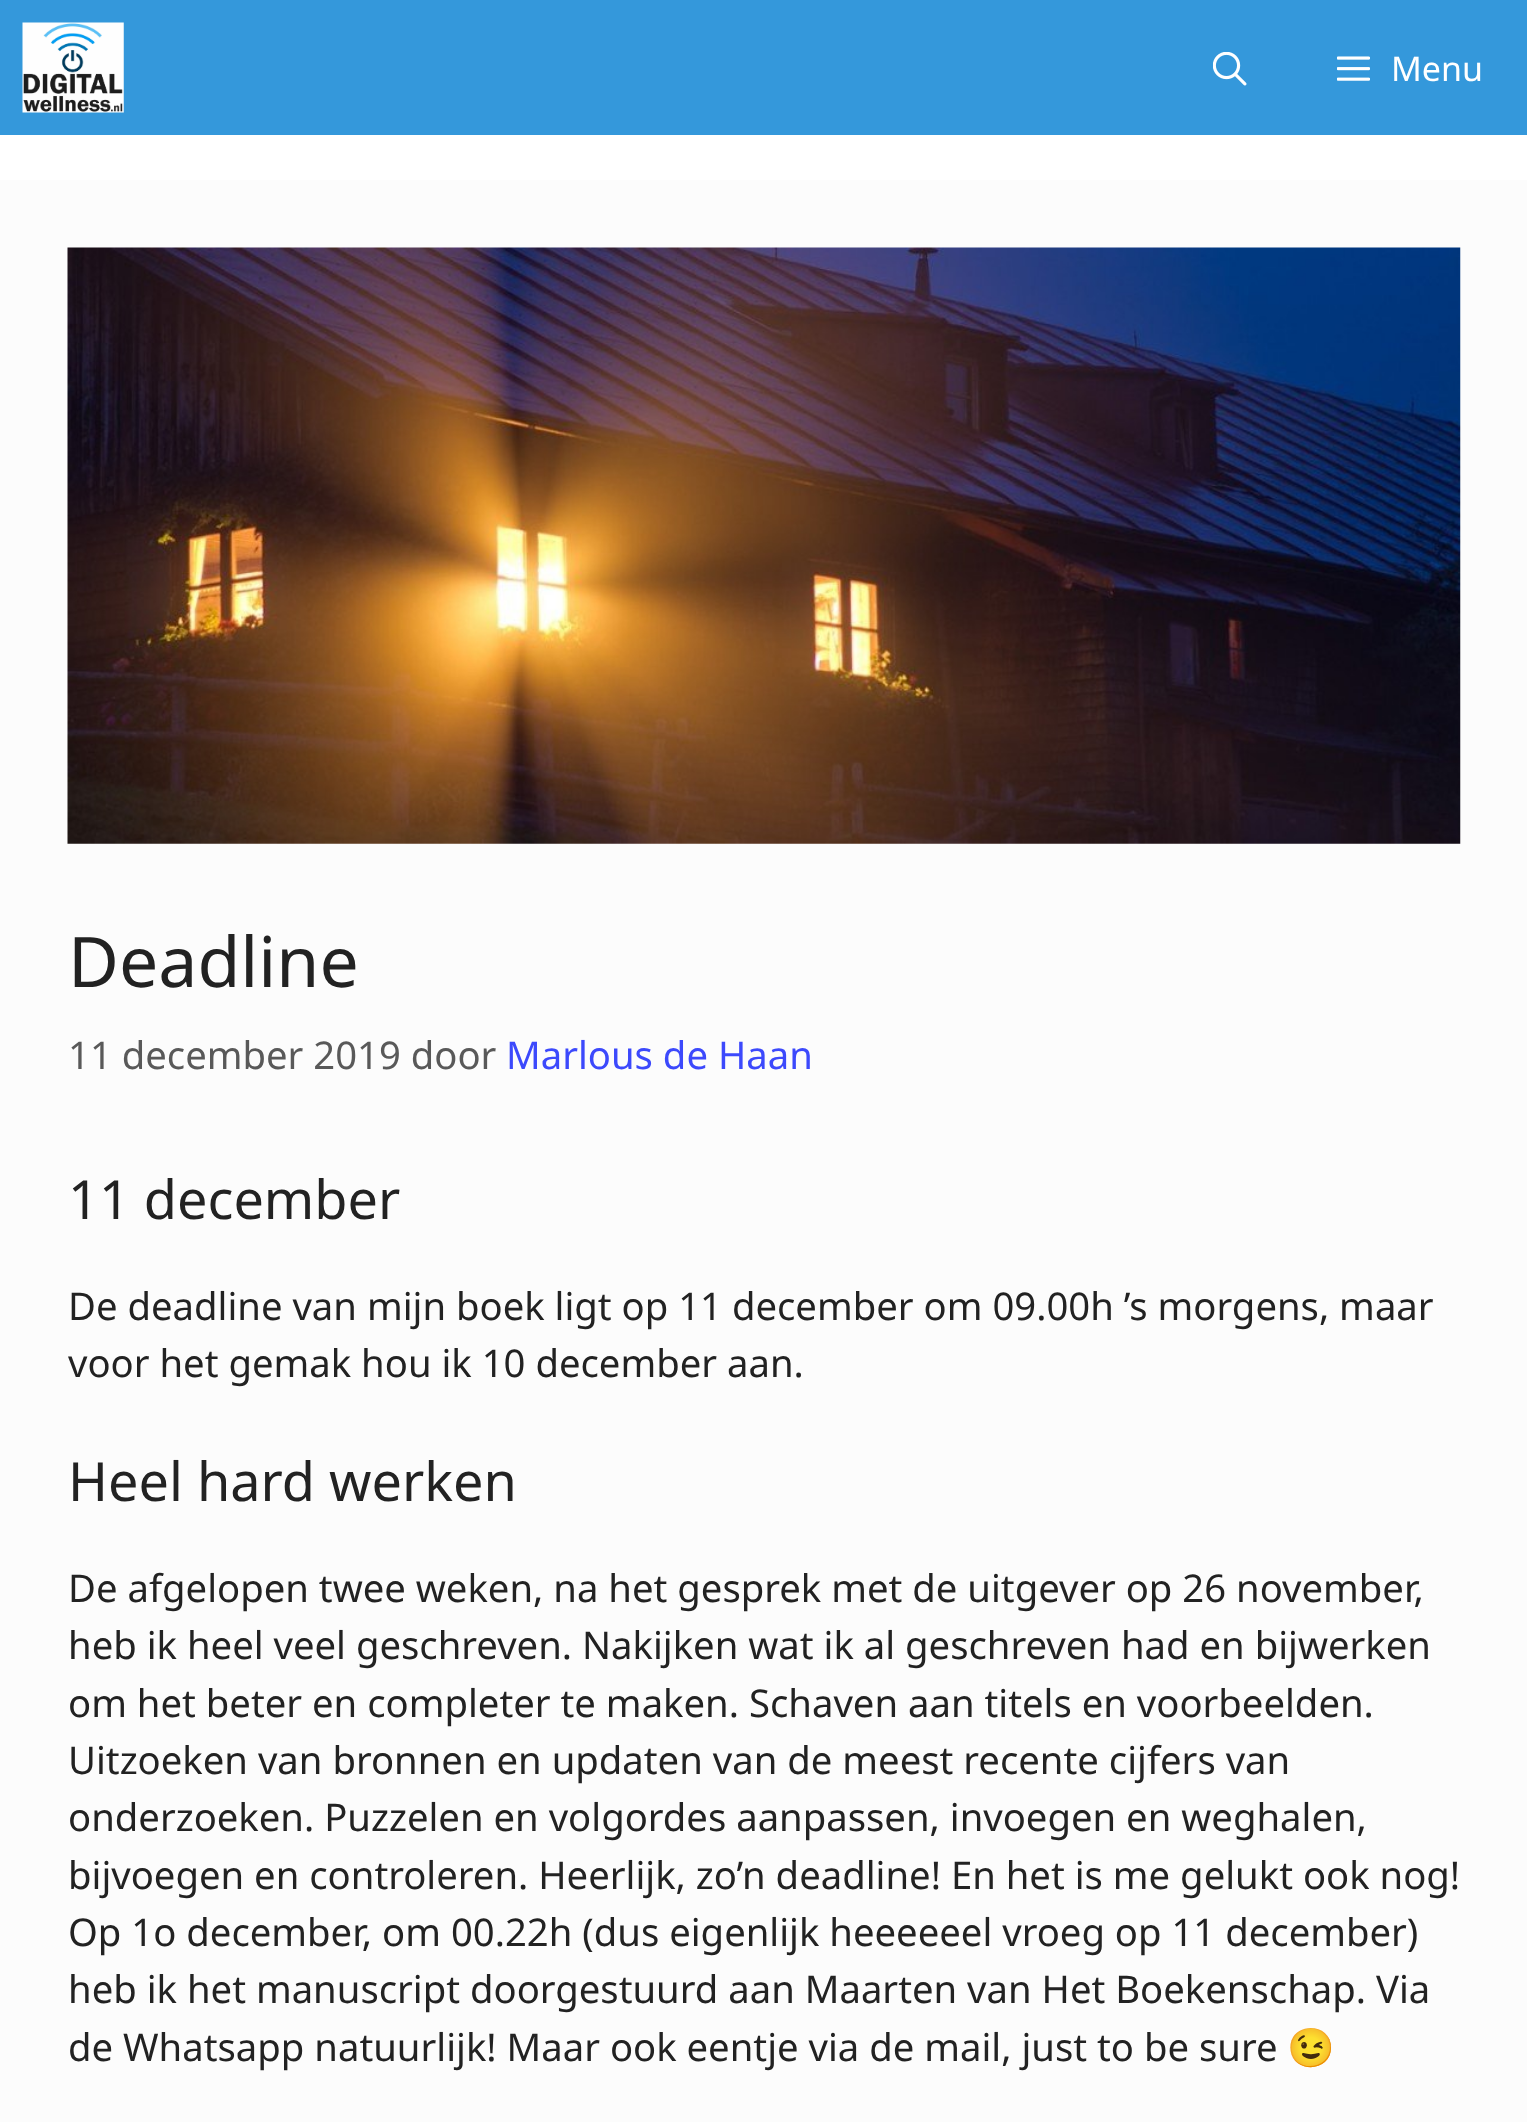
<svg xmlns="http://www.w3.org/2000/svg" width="1527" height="2122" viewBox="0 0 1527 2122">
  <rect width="100%" height="100%" fill="rgb(255,255,255)"/>
  <rect x="0" y="0" width="1527" height="135" fill="rgb(52,152,219)"/>
  <image x="22" y="22" width="102" height="91" href="pic1.png"/>
  <image x="1213" y="52" width="34" height="34" href="pic2.png"/>
  <image x="1337" y="56" width="33" height="25" href="pic3.png"/>
  <text x="1391" y="81" font-family="Noto Sans" font-size="34" fill="rgb(255,255,255)">Menu</text>
  <rect x="0" y="180" width="1527" height="1942" fill="rgb(252,252,252)"/>
  <image x="67" y="247" width="1394" height="597" href="pic4.png"/>
  <text x="68" y="987" font-family="Noto Sans" font-size="69.75" fill="rgb(34,34,34)">Deadline</text>
  <text x="68" y="1069" font-family="Noto Sans" font-size="38.25" fill="rgb(89,89,89)">11 december 2019 door</text>
  <text x="506" y="1069" font-family="Noto Sans" font-size="38.25" fill="rgb(60,73,252)">Marlous de Haan</text>
  <text x="68" y="1219" font-family="Noto Sans" font-size="54" fill="rgb(34,34,34)">11 december</text>
  <g font-family="Noto Sans" font-size="38.25" fill="rgb(34,34,34)">
    <text>
      <tspan x="68" y="1320">De deadline van mijn boek ligt op 11 december om 09.00h ’s morgens, maar</tspan>
      <tspan x="68" y="1377">voor het gemak hou ik 10 december aan.</tspan>
    </text>
  </g>
  <text x="68" y="1501" font-family="Noto Sans" font-size="54" fill="rgb(34,34,34)">Heel hard werken</text>
  <g font-family="Noto Sans" font-size="38.25" fill="rgb(34,34,34)">
    <text>
      <tspan x="68" y="1602">De afgelopen twee weken, na het gesprek met de uitgever op 26 november,</tspan>
      <tspan x="68" y="1659">heb ik heel veel geschreven. Nakijken wat ik al geschreven had en bijwerken</tspan>
      <tspan x="68" y="1717">om het beter en completer te maken. Schaven aan titels en voorbeelden.</tspan>
      <tspan x="68" y="1774">Uitzoeken van bronnen en updaten van de meest recente cijfers van</tspan>
      <tspan x="68" y="1831">onderzoeken. Puzzelen en volgordes aanpassen, invoegen en weghalen,</tspan>
      <tspan x="68" y="1889">bijvoegen en controleren. Heerlijk, zo’n deadline! En het is me gelukt ook nog!</tspan>
      <tspan x="68" y="1946">Op 1o december, om 00.22h (dus eigenlijk heeeeeel vroeg op 11 december)</tspan>
      <tspan x="68" y="2003">heb ik het manuscript doorgestuurd aan Maarten van Het Boekenschap. Via</tspan>
      <tspan x="68" y="2061">de Whatsapp natuurlijk! Maar ook eentje via de mail, just to be sure</tspan>
    </text>
  </g>
  <text x="1287" y="2061" font-family="Noto Color Emoji" font-size="38.25" fill="rgb(34,34,34)">😉</text>
</svg>
